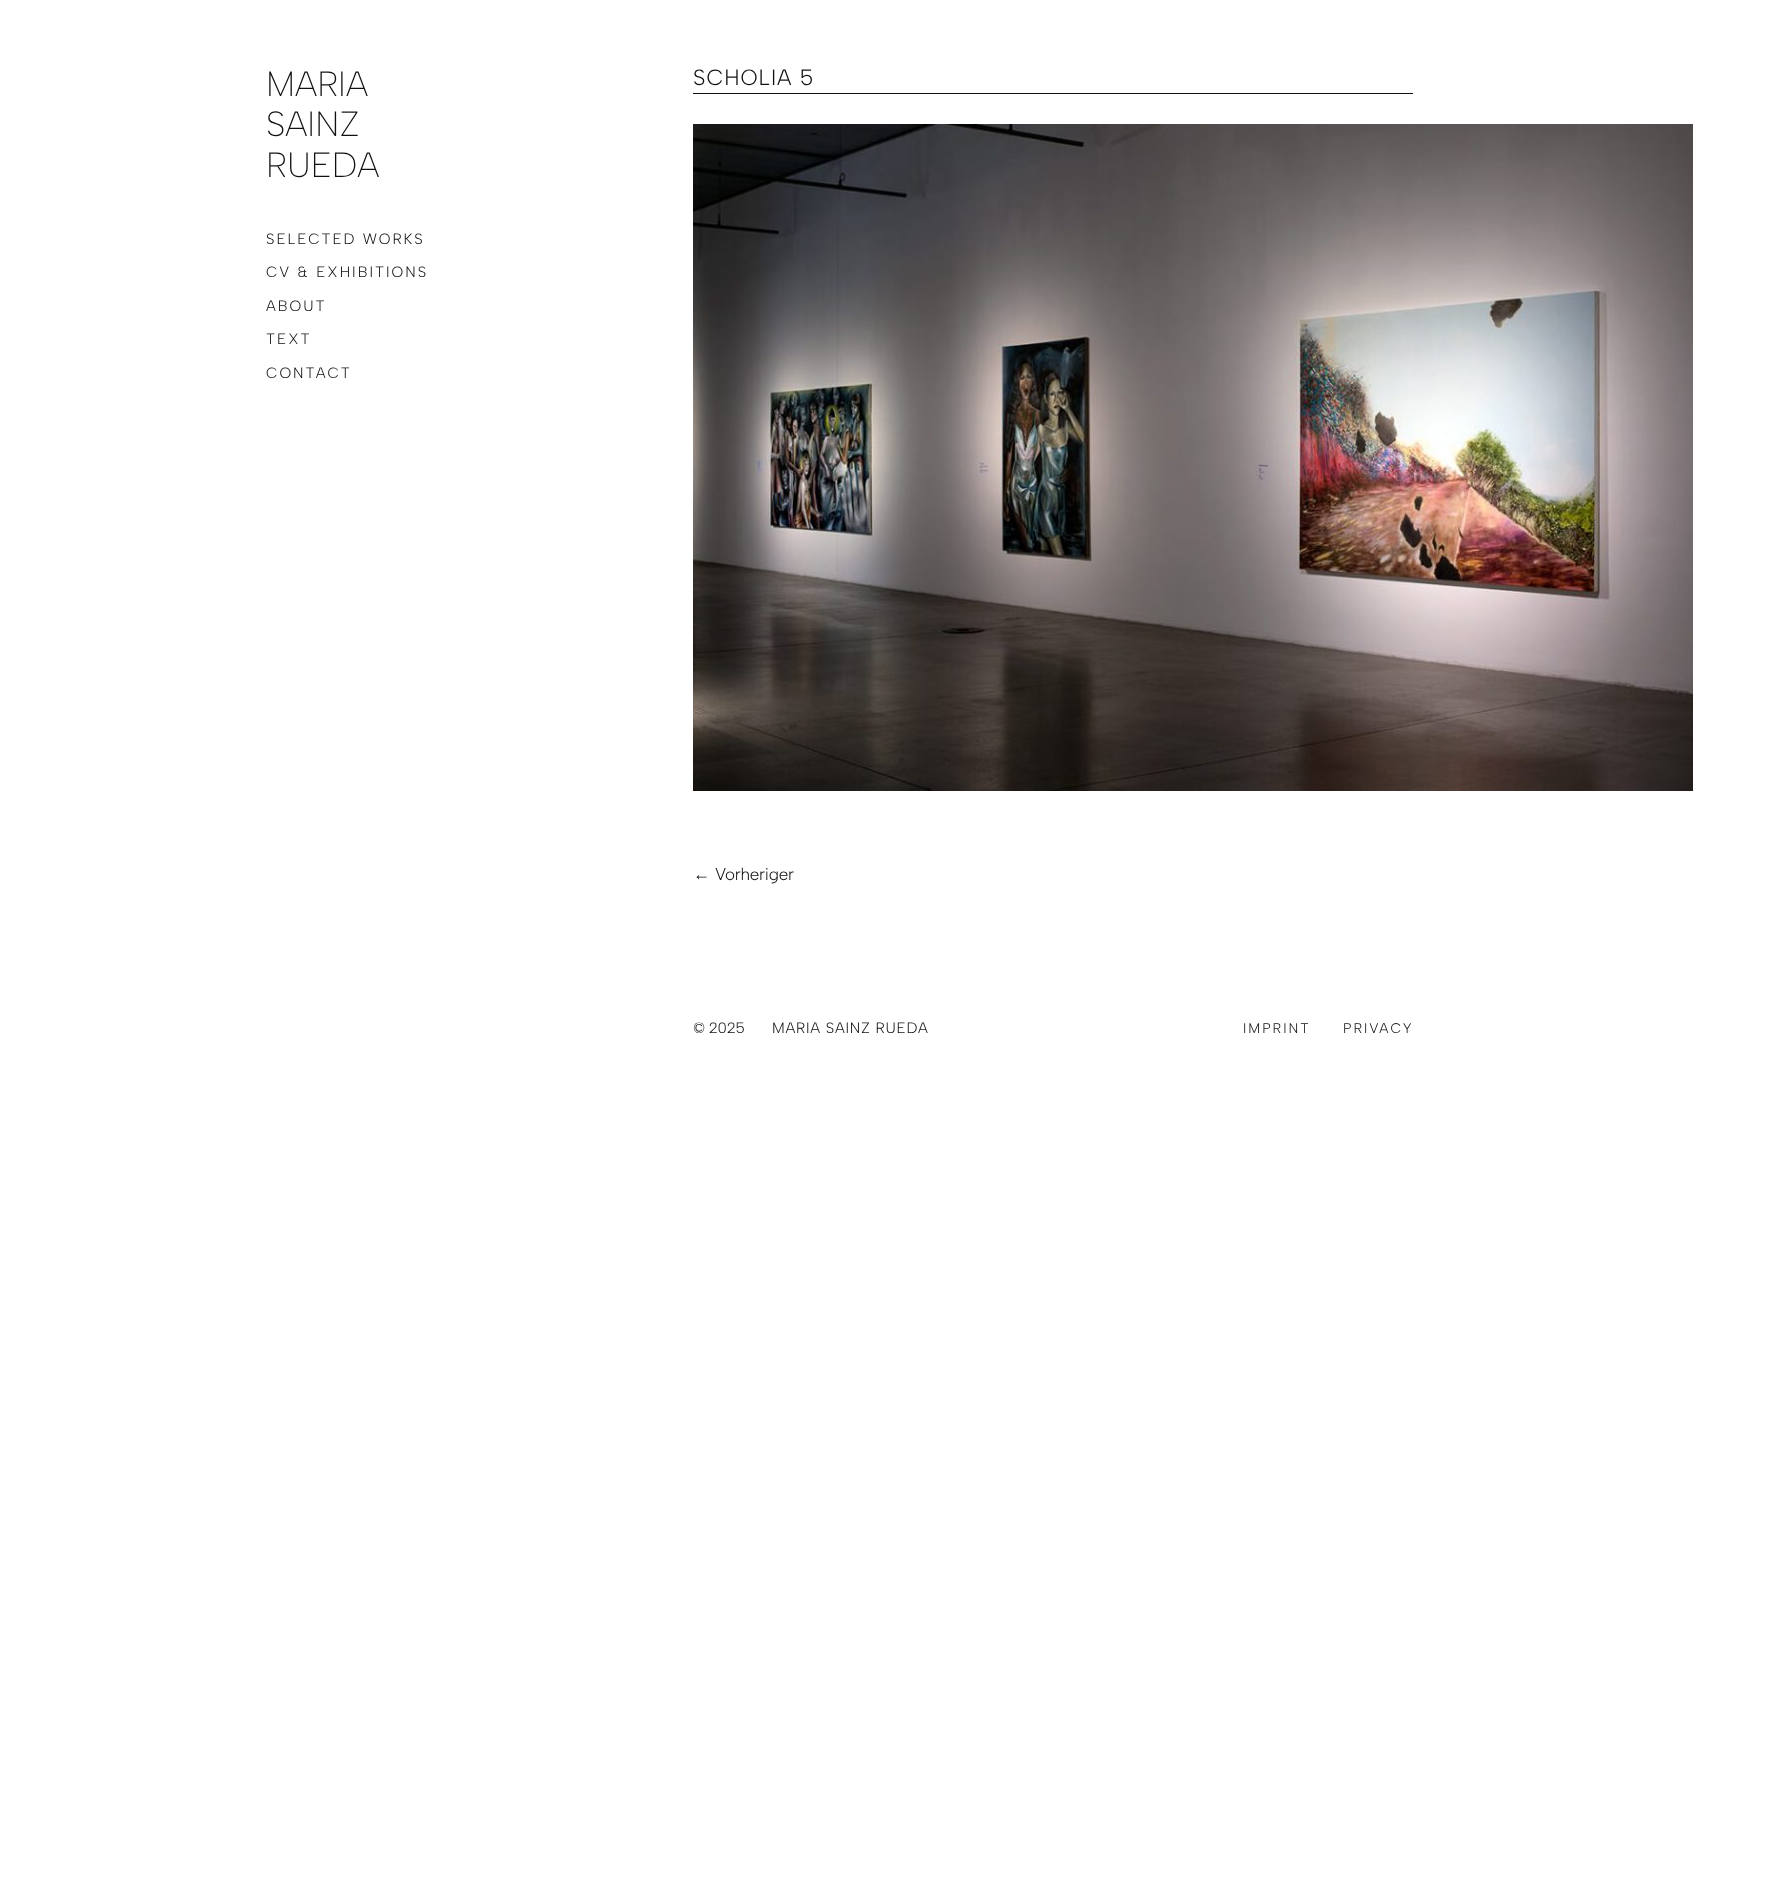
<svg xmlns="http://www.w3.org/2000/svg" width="1792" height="1887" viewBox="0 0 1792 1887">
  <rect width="100%" height="100%" fill="rgb(255,255,255)"/>
  <g font-family="Albert Sans" font-size="35" font-weight="200" fill="rgb(17,17,17)">
    <text>
      <tspan x="266" y="96">MARIA</tspan>
      <tspan x="266" y="136">SAINZ</tspan>
      <tspan x="266" y="177">RUEDA</tspan>
    </text>
  </g>
  <g font-family="Albert Sans" font-size="15" font-weight="300" letter-spacing="2" fill="rgb(17,17,17)">
    <text x="266" y="244">SELECTED WORKS</text>
    <text x="266" y="277">CV &amp; EXHIBITIONS</text>
    <text x="266" y="311">ABOUT</text>
    <text x="266" y="344">TEXT</text>
    <text x="266" y="378">CONTACT</text>
  </g>
  <rect x="693" y="93" width="720" height="1" fill="rgb(17,17,17)"/>
  <text x="693" y="85" font-family="Albert Sans" font-size="22" font-weight="300" letter-spacing="1" fill="rgb(17,17,17)">SCHOLIA 5</text>
  <image x="693" y="124" width="1000" height="667" href="pic1.png"/>
  <text x="693" y="880" font-family="Liberation Sans" font-size="17" letter-spacing="-0.25" fill="rgb(17,17,17)">←</text>
  <text x="715" y="880" font-family="Albert Sans" font-size="17" font-weight="300" letter-spacing="-0.25" fill="rgb(17,17,17)">Vorheriger</text>
  <text x="693" y="1033" font-family="Albert Sans" font-size="15" font-weight="300" letter-spacing="-0.25" fill="rgb(17,17,17)">© 2025</text>
  <text x="772" y="1033" font-family="Albert Sans" font-size="15" font-weight="300" letter-spacing="0.75" fill="rgb(17,17,17)">MARIA SAINZ RUEDA</text>
  <g font-family="Albert Sans" font-size="14" font-weight="300" letter-spacing="2" fill="rgb(17,17,17)">
    <text x="1243" y="1033">IMPRINT</text>
    <text x="1343" y="1033">PRIVACY</text>
  </g>
</svg>
